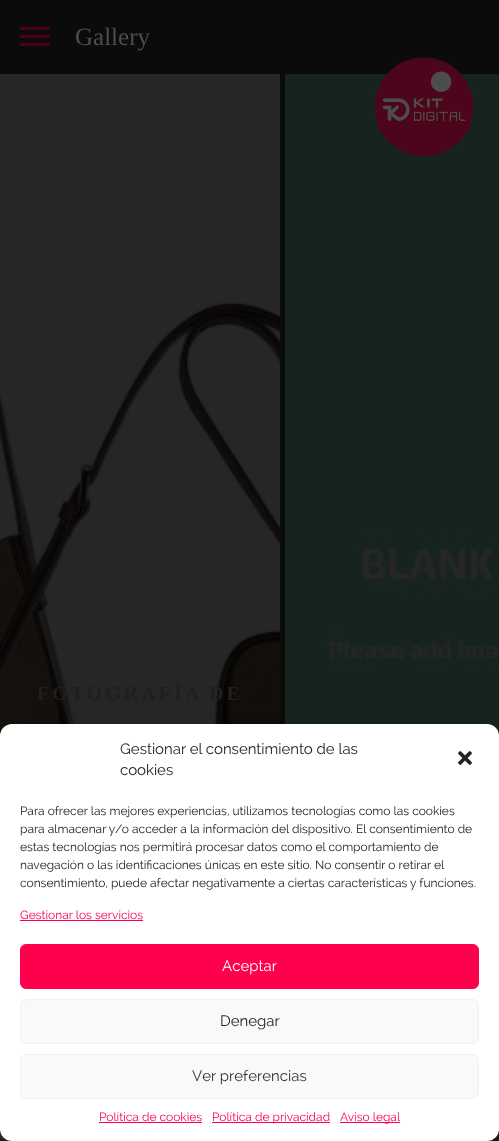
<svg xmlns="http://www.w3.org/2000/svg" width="499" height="1141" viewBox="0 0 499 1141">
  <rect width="100%" height="100%" fill="rgb(11,11,11)"/>
  <rect x="20" y="35" width="30" height="3" fill="rgb(77,0,23)"/>
  <rect x="20" y="27" width="30" height="3" fill="rgb(77,0,23)"/>
  <rect x="20" y="43" width="30" height="3" fill="rgb(77,0,23)"/>
  <text x="75" y="45" font-family="Liberation Serif" font-size="25" fill="rgb(77,77,77)">Gallery</text>
  <image x="0" y="74" width="280" height="1067" href="pic1.png"/>
  <text x="37" y="700" font-family="Liberation Serif" font-size="20" font-weight="bold" letter-spacing="3" fill="rgb(32,31,30)">FOTOGRAFÍA DE</text>
  <image x="285" y="74" width="214" height="1067" href="pic2.png"/>
  <image x="374" y="57" width="100" height="100" href="pic3.png"/>
  <rect x="0.5" y="1134.5" width="436" height="4" rx="2" fill="rgb(77,0,23)" stroke="rgb(77,77,77)"/>
  <rect x="0" y="730" width="499" height="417" rx="12" fill="rgba(0,0,0,0.23)" filter="blur(3px)"/>
  <rect x="0" y="734" width="499" height="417" rx="12" fill="rgba(0,0,0,0.19)" filter="blur(10px)"/>
  <rect x="0" y="724" width="499" height="417" rx="12" fill="rgb(255,255,255)"/>
  <g font-family="Raleway" font-size="15" fill="rgb(32,31,30)">
    <text>
      <tspan x="120" y="754">Gestionar el consentimiento de las</tspan>
      <tspan x="120" y="775">cookies</tspan>
    </text>
  </g>
  <image x="458" y="751" width="14" height="14" href="pic4.png"/>
  <g font-family="Raleway" font-size="12" fill="rgb(32,31,30)">
    <text>
      <tspan x="20" y="815">Para ofrecer las mejores experiencias, utilizamos tecnologías como las cookies</tspan>
      <tspan x="20" y="833">para almacenar y/o acceder a la información del dispositivo. El consentimiento de</tspan>
      <tspan x="20" y="851">estas tecnologías nos permitirá procesar datos como el comportamiento de</tspan>
      <tspan x="20" y="869">navegación o las identificaciones únicas en este sitio. No consentir o retirar el</tspan>
      <tspan x="20" y="887">consentimiento, puede afectar negativamente a ciertas características y funciones.</tspan>
    </text>
  </g>
  <text x="20" y="919" font-family="Raleway" font-size="12" fill="rgb(255,0,76)">Gestionar los servicios</text>
  <rect x="20" y="920" width="123" height="1" fill="rgb(255,0,76)"/>
  <rect x="20.5" y="944.5" width="458" height="44" rx="5.5" fill="rgb(255,0,76)" stroke="rgb(255,0,76)"/>
  <text x="222" y="971" font-family="Raleway" font-size="15" fill="rgb(255,255,255)">Aceptar</text>
  <rect x="20.5" y="999.5" width="458" height="44" rx="5.5" fill="rgb(249,249,249)" stroke="rgb(242,242,242)"/>
  <text x="220" y="1026" font-family="Raleway" font-size="15" fill="rgb(32,31,30)">Denegar</text>
  <rect x="20.5" y="1054.5" width="458" height="44" rx="5.5" fill="rgb(249,249,249)" stroke="rgb(242,242,242)"/>
  <text x="192" y="1081" font-family="Raleway" font-size="15" fill="rgb(51,51,51)">Ver preferencias</text>
  <text x="99" y="1121" font-family="Raleway" font-size="12" fill="rgb(255,0,76)">Política de cookies</text>
  <rect x="99" y="1122" width="103" height="1" fill="rgb(255,0,76)"/>
  <rect x="212" y="1122" width="118" height="1" fill="rgb(255,0,76)"/>
  <text x="212" y="1121" font-family="Raleway" font-size="12" fill="rgb(255,0,76)">Política de privacidad</text>
  <rect x="340" y="1122" width="60" height="1" fill="rgb(255,0,76)"/>
  <text x="340" y="1121" font-family="Raleway" font-size="12" fill="rgb(255,0,76)">Aviso legal</text>
</svg>
